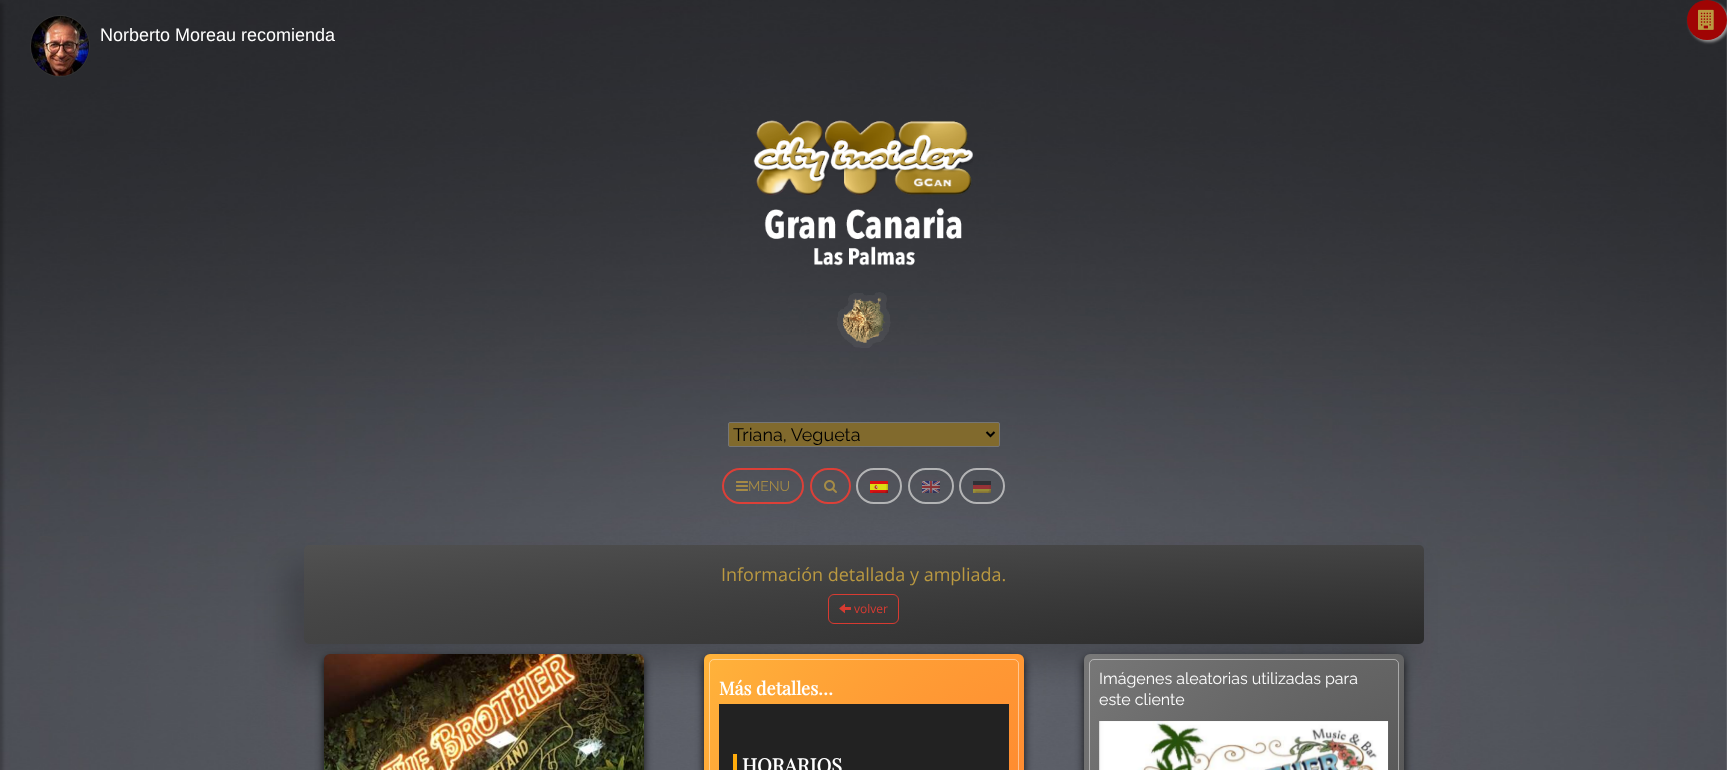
<svg xmlns="http://www.w3.org/2000/svg" width="1727" height="770" viewBox="0 0 1727 770">
  <defs>
    <radialGradient id="g1" gradientUnits="userSpaceOnUse" cx="0" cy="0" r="1" gradientTransform="matrix(1980 0 0 175 1704 669)"><stop offset="0" stop-color="rgb(32,32,32)"/><stop offset="1" stop-color="rgb(81,81,81)"/></radialGradient>
    <radialGradient id="g2" gradientUnits="userSpaceOnUse" cx="0" cy="0" r="1" gradientTransform="matrix(566 0 0 951 1104 1327)"><stop offset="0" stop-color="rgb(255,82,33)"/><stop offset="1" stop-color="rgb(255,179,59)"/></radialGradient>
    <radialGradient id="g3" gradientUnits="userSpaceOnUse" cx="0" cy="0" r="1" gradientTransform="matrix(566 0 0 670 1484 1128)"><stop offset="0" stop-color="rgb(52,52,52)"/><stop offset="1" stop-color="rgb(120,120,120)"/></radialGradient>
  </defs>
  <rect width="100%" height="100%" fill="rgb(255,255,255)"/>
  <image x="0" y="0" width="1727" height="770" href="pic1.png"/>
  <path d="M60 15.5C76.5 15.5 89.5 29 89.5 46C89.5 63 76.5 76.5 60 76.5C43.5 76.5 30.5 63 30.5 46C30.5 29 43.5 15.5 60 15.5Z" fill="none" stroke="rgb(51,51,51)"/>
  <image x="31" y="16" width="58" height="60" href="pic2.png"/>
  <text x="100" y="41" font-family="Liberation Sans" font-size="18" fill="rgb(255,255,255)">Norberto Moreau recomienda</text>
  <rect x="1689" y="2" width="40" height="40" rx="20" fill="rgb(153,153,153)" filter="blur(1.5px)"/>
  <circle cx="1707" cy="20" r="20" fill="rgb(160,4,4)"/>
  <image x="1698" y="9" width="16" height="21" href="pic3.png"/>
  <rect x="-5" y="3" width="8" height="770" fill="rgba(0,0,0,0.2)" filter="blur(1.5px)"/>
  <image x="753" y="120" width="220" height="76" href="pic4.png"/>
  <image x="764" y="208" width="198" height="58" href="pic5.png"/>
  <image x="837" y="292" width="54" height="56" href="pic6.png"/>
  <rect x="728.5" y="422.5" width="271" height="24" rx="1.5" fill="rgb(129,106,45)" stroke="rgb(118,118,118)"/>
  <path d="M986.5 432L990.5 436L994.5 432" fill="none" stroke="rgb(0,0,0)" stroke-width="2"/>
  <text x="733" y="441" font-family="Raleway" font-size="18" fill="rgb(0,0,0)">Triana, Vegueta</text>
  <rect x="723" y="469" width="80" height="34" rx="17" fill="none" stroke="rgba(255,59,48,0.8)" stroke-width="2"/>
  <image x="736" y="481" width="12" height="10" href="pic7.png"/>
  <text x="748" y="491" font-family="Raleway" font-size="14" fill="rgb(165,139,70)">MENU</text>
  <rect x="811" y="469" width="39" height="34" rx="17" fill="none" stroke="rgba(255,59,48,0.8)" stroke-width="2"/>
  <image x="824" y="480" width="13" height="13" href="pic8.png"/>
  <rect x="857" y="469" width="44" height="34" rx="17" fill="none" stroke="rgba(204,204,204,0.8)" stroke-width="2"/>
  <image x="870" y="481" width="18" height="12" href="pic9.png"/>
  <rect x="909" y="469" width="44" height="34" rx="17" fill="none" stroke="rgba(204,204,204,0.8)" stroke-width="2"/>
  <image x="922" y="481" width="18" height="12" href="pic10.png"/>
  <rect x="960" y="469" width="44" height="34" rx="17" fill="none" stroke="rgba(204,204,204,0.8)" stroke-width="2"/>
  <image x="973" y="481" width="18" height="12" href="pic11.png"/>
  <rect x="286" y="564" width="1120" height="99" rx="5" fill="rgba(0,0,0,0.2)" filter="blur(15.5px)"/>
  <rect x="304" y="545" width="1120" height="99" rx="5" fill="url(#g1)"/>
  <text x="721" y="581" font-family="Open Sans" font-size="18" fill="rgb(186,153,65)">Información detallada y ampliada.</text>
  <rect x="828.5" y="594.5" width="70" height="29" rx="5.5" fill="none" stroke="rgba(255,59,48,0.8)"/>
  <image x="839" y="603" width="12" height="11" href="pic12.png"/>
  <text x="854" y="613" font-family="Open Sans" font-size="12" fill="rgb(216,59,50)">volver</text>
  <rect x="324" y="658" width="320" height="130" rx="6" fill="rgba(0,0,0,0.8)" filter="blur(4px)"/>
  <image x="324" y="654" width="320" height="116" href="pic13.png"/>
  <rect x="704" y="658" width="320" height="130" rx="6" fill="rgba(0,0,0,0.8)" filter="blur(4px)"/>
  <rect x="704" y="654" width="320" height="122" rx="6" fill="url(#g2)"/>
  <rect x="709.5" y="659.5" width="309" height="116" rx="4.5" fill="none" stroke="rgba(255,255,255,0.45)"/>
  <text x="719" y="695" font-family="Playfair Display" font-size="18" font-weight="bold" fill="rgb(255,255,255)">Más detalles…</text>
  <rect x="719" y="704" width="290" height="66" fill="rgb(34,34,34)"/>
  <rect x="733" y="754" width="4" height="16" fill="rgb(255,172,12)"/>
  <text x="742" y="773" font-family="Playfair Display" font-size="20" font-weight="bold" fill="rgb(255,255,255)">HORARIOS</text>
  <rect x="1084" y="658" width="320" height="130" rx="6" fill="rgba(0,0,0,0.8)" filter="blur(4px)"/>
  <rect x="1084" y="654" width="320" height="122" rx="6" fill="url(#g3)"/>
  <rect x="1089.5" y="659.5" width="309" height="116" rx="4.5" fill="none" stroke="rgba(255,255,255,0.45)"/>
  <g font-family="Raleway" font-size="16" fill="rgb(255,255,255)">
    <text>
      <tspan x="1099" y="684">Imágenes aleatorias utilizadas para</tspan>
      <tspan x="1099" y="705">este cliente</tspan>
    </text>
  </g>
  <image x="1099" y="721" width="290" height="49" href="pic14.png"/>
</svg>
